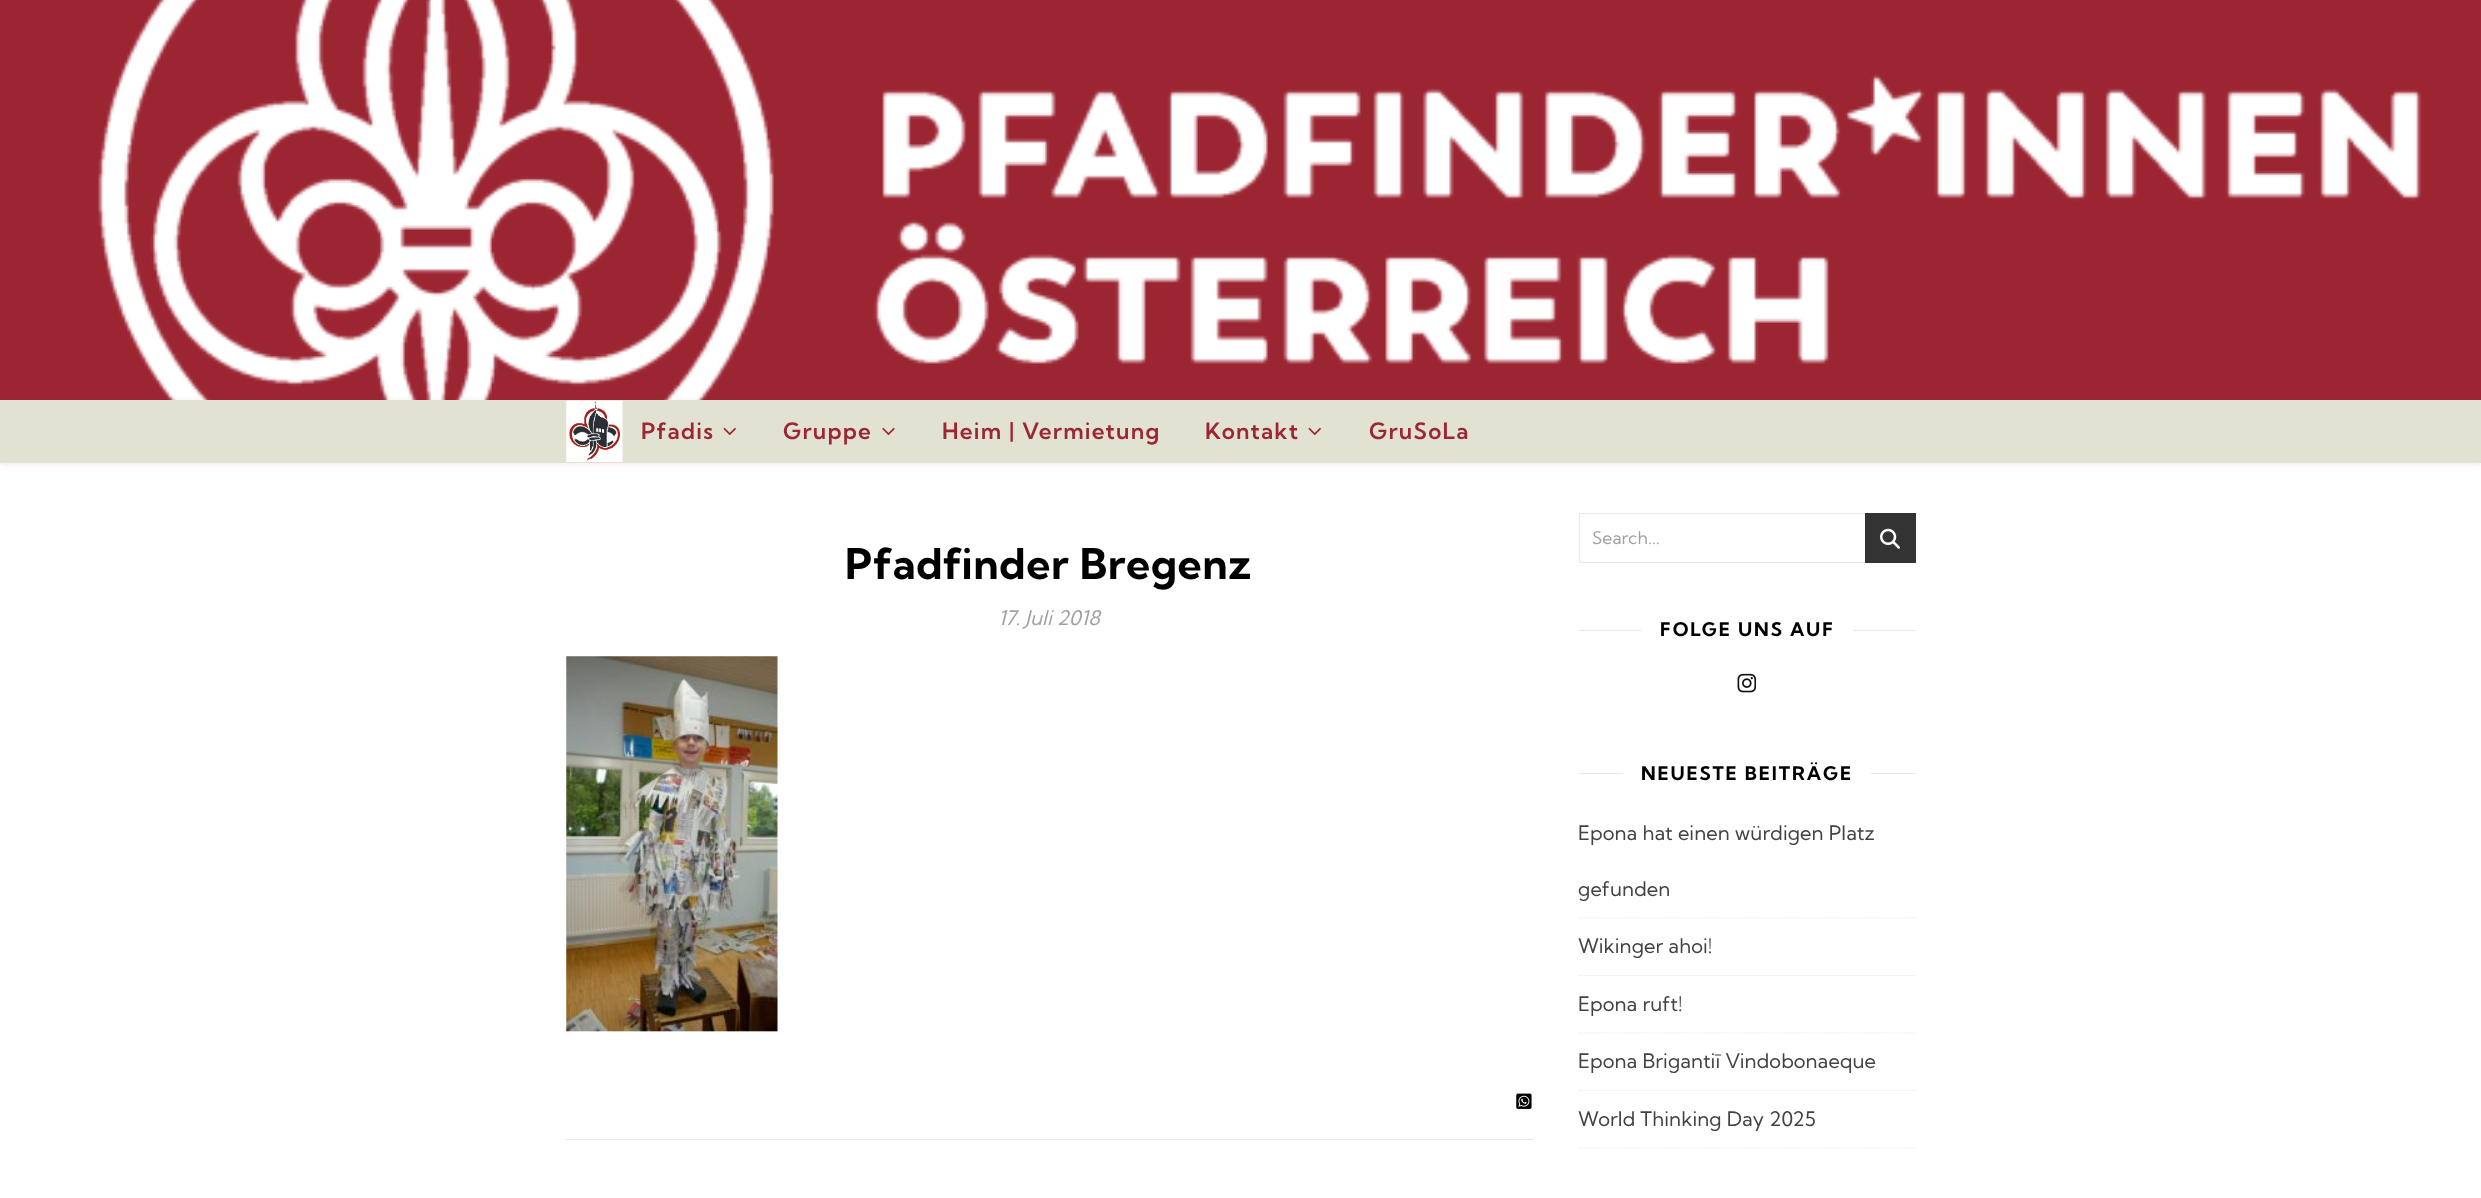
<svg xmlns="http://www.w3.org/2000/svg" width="2481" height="1198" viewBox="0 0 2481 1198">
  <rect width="100%" height="100%" fill="rgb(255,255,255)"/>
  <image x="0" y="0" width="2481" height="400" href="pic1.png"/>
  <rect x="0" y="401" width="2481" height="63" fill="rgba(157,38,50,0.1)" filter="blur(3px)"/>
  <rect x="0" y="400" width="2481" height="63" fill="rgb(226,226,211)"/>
  <image x="566" y="400" width="57" height="62" href="pic2.png"/>
  <text x="641" y="439" font-family="Kumbh Sans" font-size="22.5" font-weight="600" letter-spacing="1.25" fill="rgb(157,38,50)">Pfadis</text>
  <image x="723" y="427" width="13" height="9" href="pic3.png"/>
  <text x="783" y="439" font-family="Kumbh Sans" font-size="22.5" font-weight="600" letter-spacing="1.25" fill="rgb(157,38,50)">Gruppe</text>
  <image x="882" y="427" width="13" height="9" href="pic4.png"/>
  <g font-family="Kumbh Sans" font-size="22.5" font-weight="600" letter-spacing="1.25" fill="rgb(157,38,50)">
    <text x="942" y="439">Heim | Vermietung</text>
    <text x="1205" y="439">Kontakt</text>
  </g>
  <image x="1308" y="427" width="13" height="9" href="pic3.png"/>
  <text x="1369" y="439" font-family="Kumbh Sans" font-size="22.5" font-weight="600" letter-spacing="1.25" fill="rgb(157,38,50)">GruSoLa</text>
  <text x="845" y="579" font-family="Kumbh Sans" font-size="42.5" font-weight="bold" letter-spacing="0.6" fill="rgb(0,0,0)">Pfadfinder Bregenz</text>
  <text x="998" y="625" font-family="Kumbh Sans" font-size="20" font-style="italic" letter-spacing="0.1" fill="rgb(161,161,161)">17. Juli 2018</text>
  <image x="566" y="656" width="212" height="376" href="pic5.png"/>
  <rect x="566" y="1139" width="967" height="1" fill="rgb(232,232,232)"/>
  <image x="1516" y="1093" width="16" height="16" href="pic6.png"/>
  <rect x="1579.5" y="513.5" width="336" height="49" fill="none" stroke="rgb(232,232,232)"/>
  <text x="1592" y="544" font-family="Kumbh Sans" font-size="17.5" fill="rgb(161,161,161)">Search...</text>
  <rect x="1865" y="513" width="51" height="50" fill="rgb(51,51,51)"/>
  <image x="1880" y="528" width="20" height="21" href="pic7.png"/>
  <rect x="1579" y="630" width="62" height="1" fill="rgb(232,232,232)"/>
  <text x="1660" y="636" font-family="Kumbh Sans" font-size="18.75" font-weight="bold" letter-spacing="1.9" fill="rgb(0,0,0)">FOLGE UNS AUF</text>
  <rect x="1853" y="630" width="63" height="1" fill="rgb(232,232,232)"/>
  <image x="1737" y="673" width="20" height="20" href="pic8.png"/>
  <rect x="1579" y="773" width="44" height="1" fill="rgb(232,232,232)"/>
  <text x="1641" y="780" font-family="Kumbh Sans" font-size="18.75" font-weight="bold" letter-spacing="1.9" fill="rgb(0,0,0)">NEUESTE BEITRÄGE</text>
  <rect x="1871" y="773" width="45" height="1" fill="rgb(232,232,232)"/>
  <path d="M1579 918H1916" fill="none" stroke="rgb(232,232,232)" stroke-width="1.2" stroke-dasharray="1.25 1.25"/>
  <g font-family="Kumbh Sans" font-size="20" letter-spacing="0.1" fill="rgb(66,66,66)">
    <text x="1578" y="840">Epona hat einen würdigen Platz</text>
    <text x="1578" y="896">gefunden</text>
  </g>
  <path d="M1579 975.5H1916" fill="none" stroke="rgb(232,232,232)" stroke-width="1.2" stroke-dasharray="1.25 1.25"/>
  <text x="1578" y="953" font-family="Kumbh Sans" font-size="20" letter-spacing="0.1" fill="rgb(66,66,66)">Wikinger ahoi!</text>
  <path d="M1579 1033H1916" fill="none" stroke="rgb(232,232,232)" stroke-width="1.2" stroke-dasharray="1.25 1.25"/>
  <text x="1578" y="1011" font-family="Kumbh Sans" font-size="20" letter-spacing="0.1" fill="rgb(66,66,66)">Epona ruft!</text>
  <path d="M1579 1090.5H1916" fill="none" stroke="rgb(232,232,232)" stroke-width="1.2" stroke-dasharray="1.25 1.25"/>
  <text x="1578" y="1068" font-family="Kumbh Sans" font-size="20" letter-spacing="0.1" fill="rgb(66,66,66)">Epona Brigantiī Vindobonaeque</text>
  <path d="M1579 1148H1916" fill="none" stroke="rgb(232,232,232)" stroke-width="1.2" stroke-dasharray="1.25 1.25"/>
  <text x="1578" y="1126" font-family="Kumbh Sans" font-size="20" letter-spacing="0.1" fill="rgb(66,66,66)">World Thinking Day 2025</text>
</svg>
